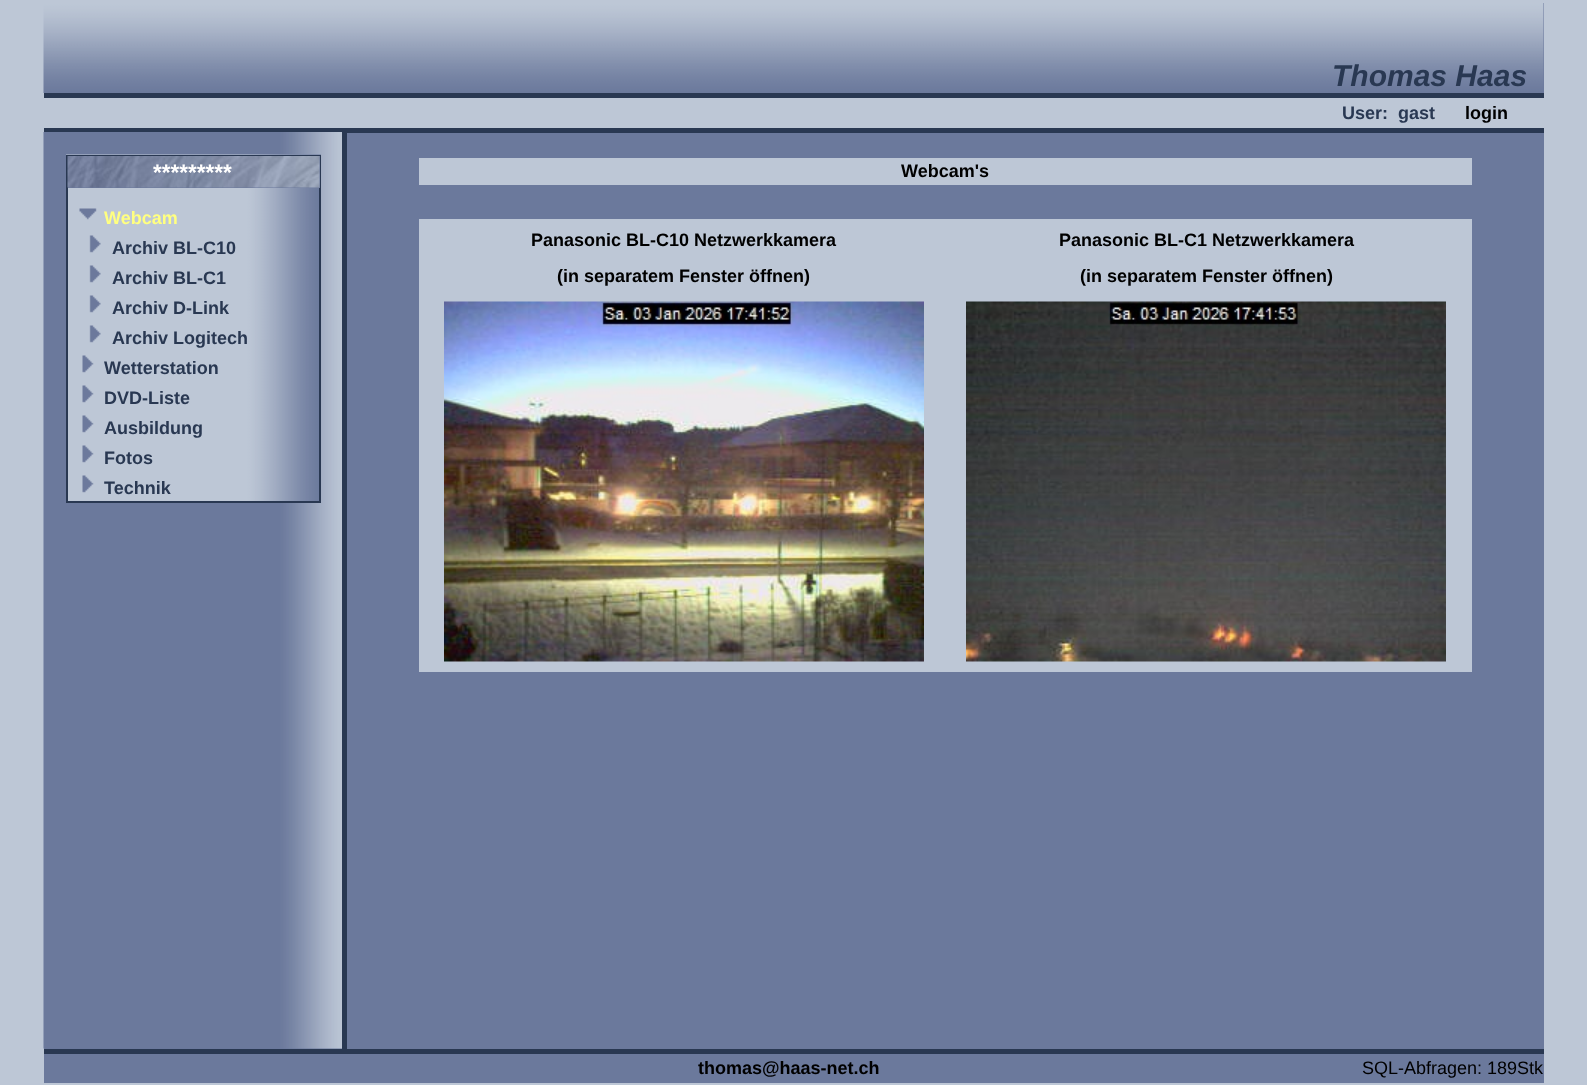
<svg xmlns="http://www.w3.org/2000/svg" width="1587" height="1085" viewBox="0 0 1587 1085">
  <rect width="100%" height="100%" fill="rgb(189,199,214)"/>
  <rect x="44" y="3" width="1500" height="1080" fill="rgb(107,121,156)"/>
  <image x="43" y="3" width="1501" height="90" href="pic1.png"/>
  <text x="1332" y="86" font-family="Liberation Sans" font-size="30" font-weight="bold" font-style="italic" fill="rgb(41,56,82)">Thomas Haas</text>
  <rect x="44" y="93" width="1500" height="5" fill="rgb(41,56,82)"/>
  <rect x="44" y="98" width="1500" height="30" fill="rgb(189,199,214)"/>
  <text x="1342" y="119" font-family="Liberation Sans" font-size="18" font-weight="bold" fill="rgb(41,56,82)" xml:space="preserve">User:  gast</text>
  <text x="1465" y="119" font-family="Liberation Sans" font-size="18" font-weight="bold" fill="rgb(0,0,0)">login</text>
  <rect x="44" y="128" width="1500" height="5" fill="rgb(41,56,82)"/>
  <image x="43" y="132" width="299" height="917" href="pic2.png"/>
  <image x="66" y="154" width="255" height="347" href="pic3.png"/>
  <rect x="67" y="156" width="253" height="346" fill="none" stroke="rgb(41,56,82)" stroke-width="2"/>
  <rect x="68" y="156" width="252" height="32" fill="rgb(107,121,156)"/>
  <image x="67" y="156" width="253" height="32" href="pic4.png"/>
  <text x="153" y="180" font-family="Liberation Sans" font-size="22.5" font-weight="bold" fill="rgb(255,255,255)">*********</text>
  <image x="79" y="208" width="18" height="12" href="pic5.png"/>
  <text x="104" y="224" font-family="Liberation Sans" font-size="18" font-weight="bold" fill="rgb(255,255,128)">Webcam</text>
  <image x="89" y="235" width="12" height="18" href="pic6.png"/>
  <text x="112" y="254" font-family="Liberation Sans" font-size="18" font-weight="bold" fill="rgb(41,56,82)">Archiv BL-C10</text>
  <image x="89" y="265" width="12" height="18" href="pic6.png"/>
  <text x="112" y="284" font-family="Liberation Sans" font-size="18" font-weight="bold" fill="rgb(41,56,82)">Archiv BL-C1</text>
  <image x="89" y="295" width="12" height="18" href="pic6.png"/>
  <text x="112" y="314" font-family="Liberation Sans" font-size="18" font-weight="bold" fill="rgb(41,56,82)">Archiv D-Link</text>
  <image x="89" y="325" width="12" height="18" href="pic6.png"/>
  <text x="112" y="344" font-family="Liberation Sans" font-size="18" font-weight="bold" fill="rgb(41,56,82)">Archiv Logitech</text>
  <image x="82" y="355" width="12" height="18" href="pic7.png"/>
  <text x="104" y="374" font-family="Liberation Sans" font-size="18" font-weight="bold" fill="rgb(41,56,82)">Wetterstation</text>
  <image x="82" y="385" width="12" height="18" href="pic7.png"/>
  <text x="104" y="404" font-family="Liberation Sans" font-size="18" font-weight="bold" fill="rgb(41,56,82)">DVD-Liste</text>
  <image x="82" y="415" width="12" height="18" href="pic7.png"/>
  <text x="104" y="434" font-family="Liberation Sans" font-size="18" font-weight="bold" fill="rgb(41,56,82)">Ausbildung</text>
  <image x="82" y="445" width="12" height="18" href="pic7.png"/>
  <text x="104" y="464" font-family="Liberation Sans" font-size="18" font-weight="bold" fill="rgb(41,56,82)">Fotos</text>
  <image x="82" y="475" width="12" height="18" href="pic7.png"/>
  <text x="104" y="494" font-family="Liberation Sans" font-size="18" font-weight="bold" fill="rgb(41,56,82)">Technik</text>
  <rect x="342" y="132" width="5" height="917" fill="rgb(41,56,82)"/>
  <rect x="419" y="158" width="1053" height="27" fill="rgb(189,199,214)"/>
  <text x="901" y="177" font-family="Liberation Sans" font-size="18" font-weight="bold" fill="rgb(0,0,0)">Webcam's</text>
  <rect x="419" y="219" width="1053" height="453" fill="rgb(189,199,214)"/>
  <g font-family="Liberation Sans" font-size="18" font-weight="bold" fill="rgb(0,0,0)">
    <text x="531" y="246">Panasonic BL-C10 Netzwerkkamera</text>
    <text x="1059" y="246">Panasonic BL-C1 Netzwerkkamera</text>
    <text x="557" y="282">(in separatem Fenster öffnen)</text>
    <text x="1080" y="282">(in separatem Fenster öffnen)</text>
  </g>
  <image x="444" y="301" width="480" height="361" href="pic8.png"/>
  <image x="966" y="301" width="480" height="361" href="pic9.png"/>
  <rect x="44" y="1049" width="1500" height="5" fill="rgb(41,56,82)"/>
  <text x="698" y="1074" font-family="Liberation Sans" font-size="18" font-weight="bold" fill="rgb(0,0,0)">thomas@haas-net.ch</text>
  <text x="1362" y="1074" font-family="Liberation Sans" font-size="18" fill="rgb(0,0,0)">SQL-Abfragen: 189Stk</text>
</svg>
